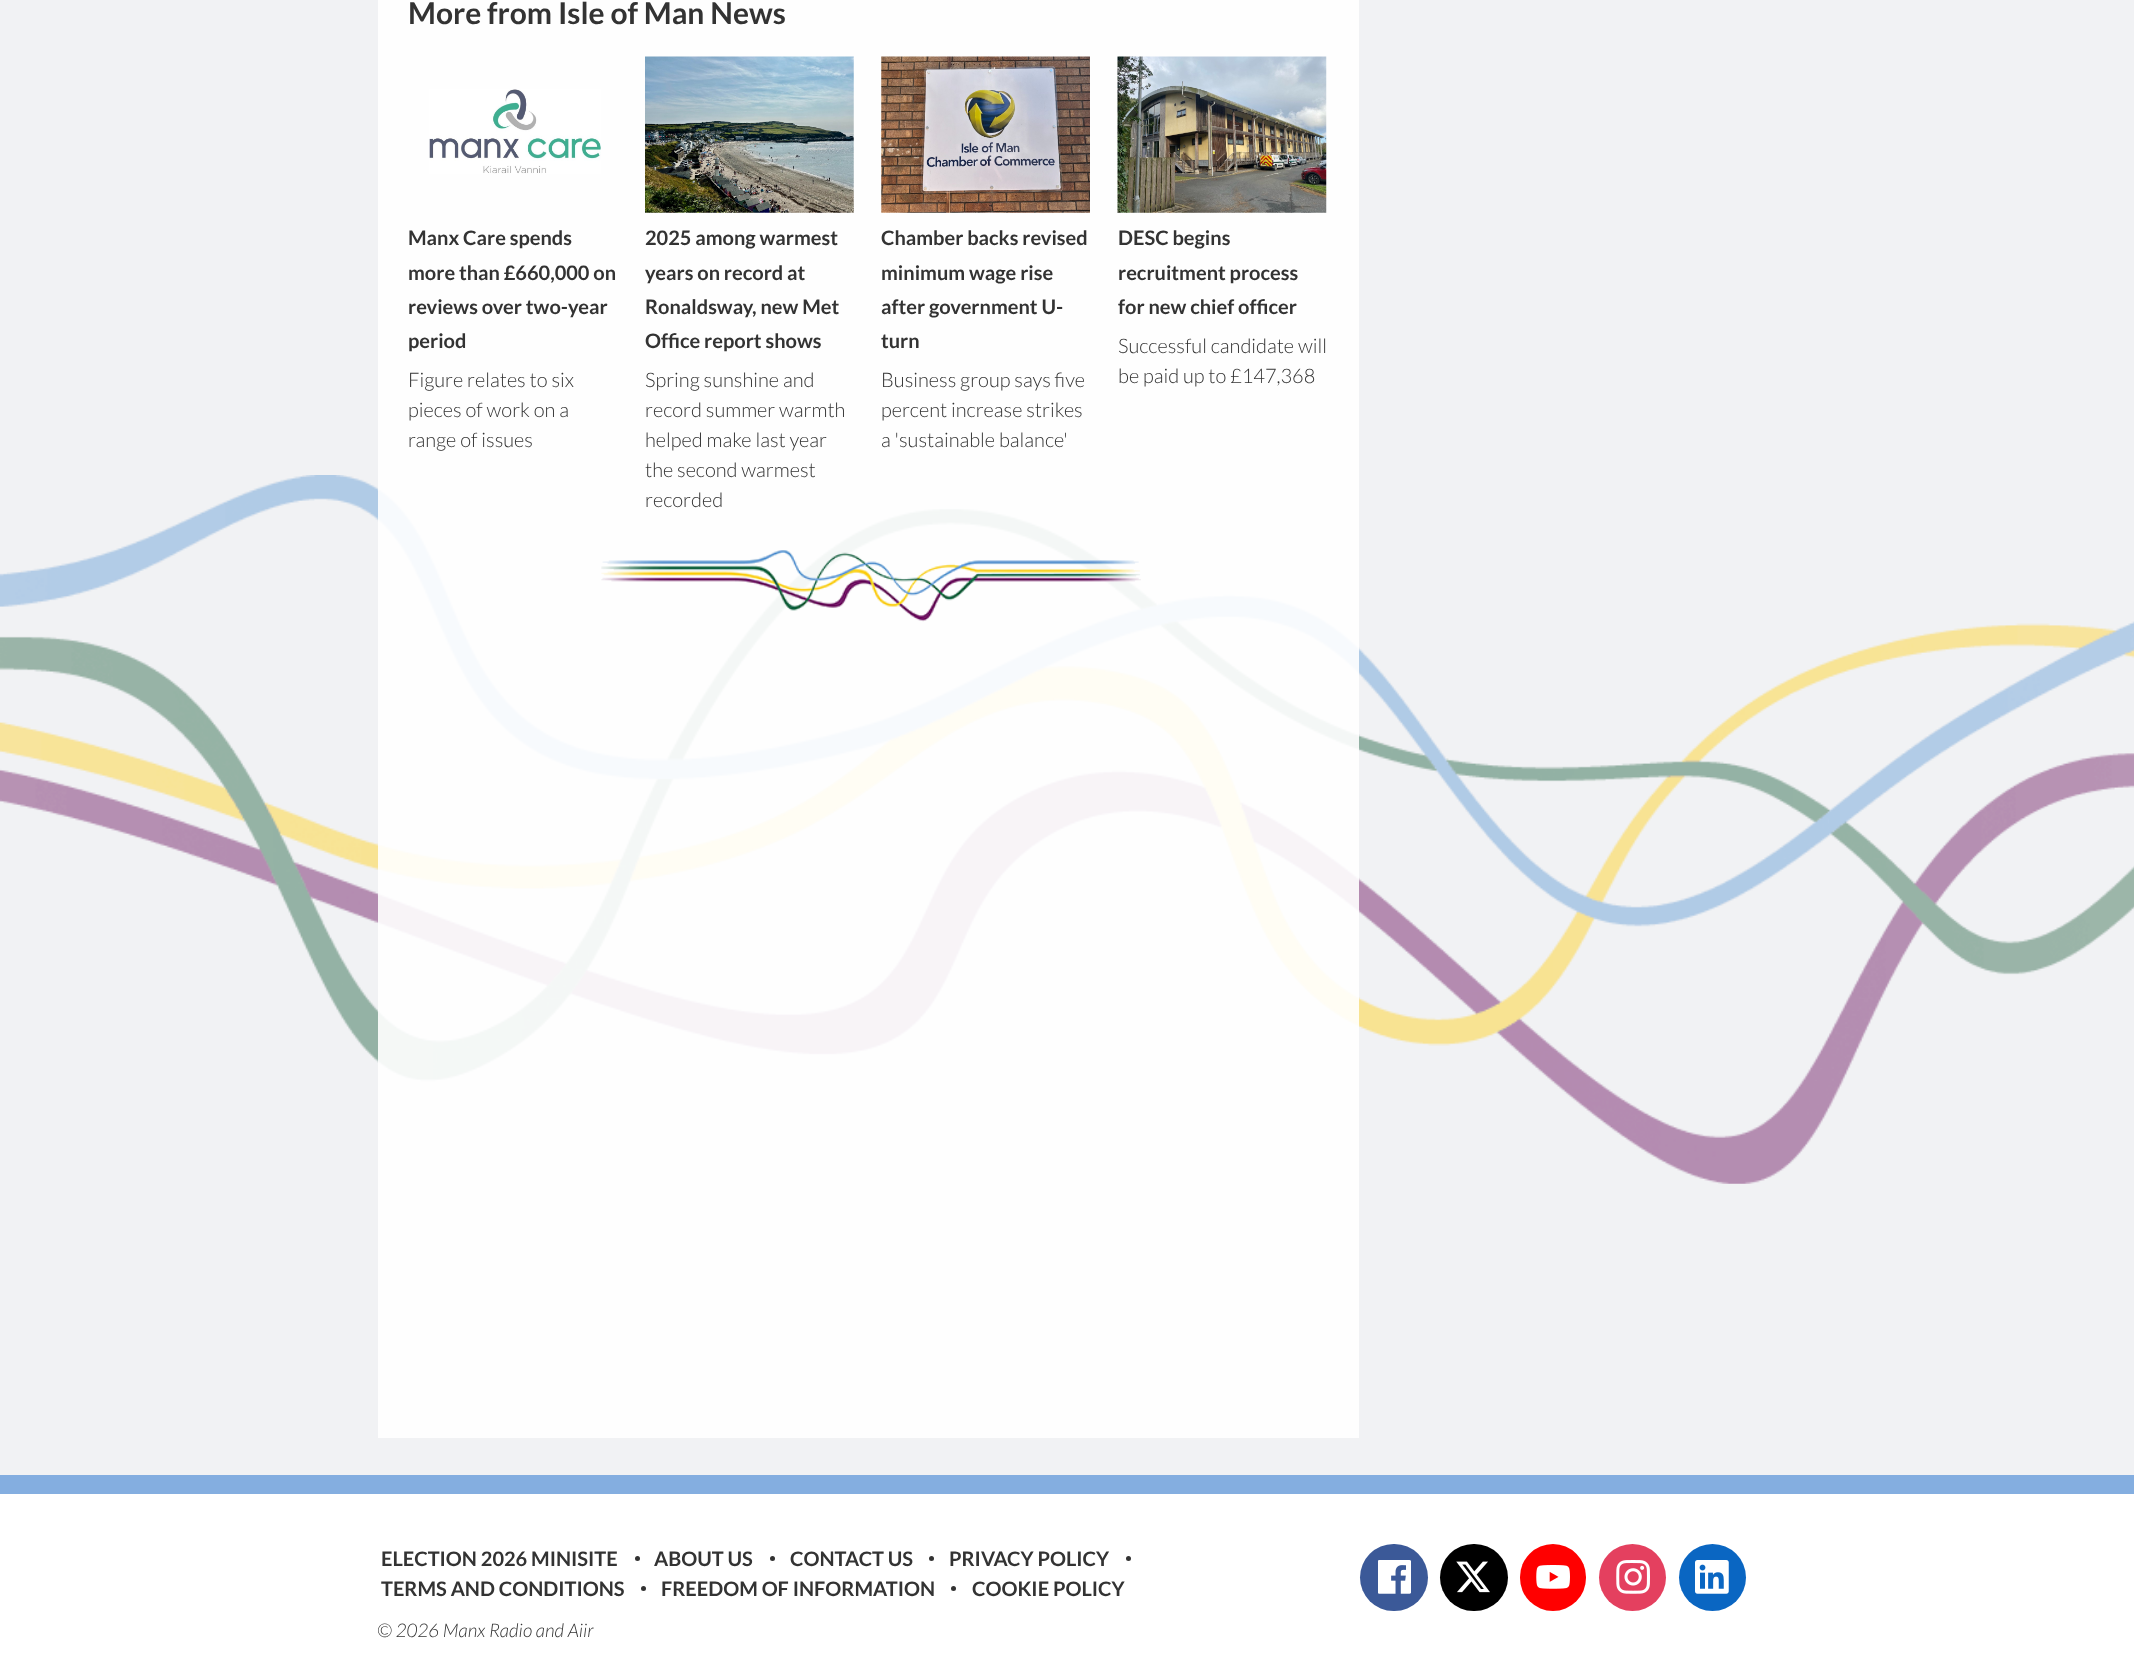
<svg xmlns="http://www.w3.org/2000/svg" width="2134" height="1658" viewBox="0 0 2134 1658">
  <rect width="100%" height="100%" fill="rgb(255,255,255)"/>
  <rect x="0" y="0" width="2134" height="1475" fill="rgb(241,242,244)"/>
  <image x="0" y="475" width="2134" height="709" href="pic1.png"/>
  <rect x="378" y="0" width="981" height="1438" fill="rgba(255,255,255,0.9)"/>
  <text x="408" y="24" font-family="Lato" font-size="30" font-weight="bold" fill="rgb(51,51,51)">More from Isle of Man News</text>
  <image x="429" y="89" width="172" height="85" href="pic2.png"/>
  <g font-family="Lato" font-size="20" font-weight="bold" fill="rgb(51,51,51)">
    <text>
      <tspan x="408" y="245">Manx Care spends</tspan>
      <tspan x="408" y="280">more than £660,000 on</tspan>
      <tspan x="408" y="314">reviews over two-year</tspan>
      <tspan x="408" y="348">period</tspan>
    </text>
  </g>
  <g font-family="Lato" font-size="20" font-weight="300" fill="rgb(51,51,51)">
    <text>
      <tspan x="408" y="387">Figure relates to six</tspan>
      <tspan x="408" y="417">pieces of work on a</tspan>
      <tspan x="408" y="447">range of issues</tspan>
    </text>
  </g>
  <image x="645" y="56" width="209" height="157" href="pic3.png"/>
  <g font-family="Lato" font-size="20" font-weight="bold" fill="rgb(51,51,51)">
    <text>
      <tspan x="645" y="245">2025 among warmest</tspan>
      <tspan x="645" y="280">years on record at</tspan>
      <tspan x="645" y="314">Ronaldsway, new Met</tspan>
      <tspan x="645" y="348">Office report shows</tspan>
    </text>
  </g>
  <g font-family="Lato" font-size="20" font-weight="300" fill="rgb(51,51,51)">
    <text>
      <tspan x="645" y="387">Spring sunshine and</tspan>
      <tspan x="645" y="417">record summer warmth</tspan>
      <tspan x="645" y="447">helped make last year</tspan>
      <tspan x="645" y="477">the second warmest</tspan>
      <tspan x="645" y="507">recorded</tspan>
    </text>
  </g>
  <image x="881" y="56" width="209" height="157" href="pic4.png"/>
  <g font-family="Lato" font-size="20" font-weight="bold" fill="rgb(51,51,51)">
    <text>
      <tspan x="881" y="245">Chamber backs revised</tspan>
      <tspan x="881" y="280">minimum wage rise</tspan>
      <tspan x="881" y="314">after government U-</tspan>
      <tspan x="881" y="348">turn</tspan>
    </text>
  </g>
  <g font-family="Lato" font-size="20" font-weight="300" fill="rgb(51,51,51)">
    <text>
      <tspan x="881" y="387">Business group says five</tspan>
      <tspan x="881" y="417">percent increase strikes</tspan>
      <tspan x="881" y="447">a 'sustainable balance'</tspan>
    </text>
  </g>
  <image x="1117" y="56" width="210" height="157" href="pic5.png"/>
  <g font-family="Lato" font-size="20" font-weight="bold" fill="rgb(51,51,51)">
    <text>
      <tspan x="1118" y="245">DESC begins</tspan>
      <tspan x="1118" y="280">recruitment process</tspan>
      <tspan x="1118" y="314">for new chief officer</tspan>
    </text>
  </g>
  <g font-family="Lato" font-size="20" font-weight="300" fill="rgb(51,51,51)">
    <text>
      <tspan x="1118" y="353">Successful candidate will</tspan>
      <tspan x="1118" y="383">be paid up to £147,368</tspan>
    </text>
  </g>
  <image x="601" y="550" width="540" height="72" href="pic6.png"/>
  <rect x="0" y="1475" width="2134" height="19" fill="rgb(132,174,224)"/>
  <text x="381" y="1566" font-family="Lato" font-size="20" font-weight="bold" fill="rgb(51,51,51)">ELECTION 2026 MINISITE</text>
  <circle cx="637.5" cy="1558.5" r="2.5" fill="rgb(51,51,51)"/>
  <text x="654" y="1566" font-family="Lato" font-size="20" font-weight="bold" fill="rgb(51,51,51)">ABOUT US</text>
  <circle cx="772.5" cy="1558.5" r="2.5" fill="rgb(51,51,51)"/>
  <text x="790" y="1566" font-family="Lato" font-size="20" font-weight="bold" fill="rgb(51,51,51)">CONTACT US</text>
  <circle cx="931.5" cy="1558.5" r="2.5" fill="rgb(51,51,51)"/>
  <text x="949" y="1566" font-family="Lato" font-size="20" font-weight="bold" fill="rgb(51,51,51)">PRIVACY POLICY</text>
  <circle cx="1128.5" cy="1558.5" r="2.5" fill="rgb(51,51,51)"/>
  <text x="381" y="1596" font-family="Lato" font-size="20" font-weight="bold" fill="rgb(51,51,51)">TERMS AND CONDITIONS</text>
  <circle cx="643.5" cy="1588.5" r="2.5" fill="rgb(51,51,51)"/>
  <text x="661" y="1596" font-family="Lato" font-size="20" font-weight="bold" fill="rgb(51,51,51)">FREEDOM OF INFORMATION</text>
  <circle cx="953.5" cy="1588.5" r="2.5" fill="rgb(51,51,51)"/>
  <text x="972" y="1596" font-family="Lato" font-size="20" font-weight="bold" fill="rgb(51,51,51)">COOKIE POLICY</text>
  <text x="377" y="1637" font-family="Lato" font-size="18.75" font-weight="300" font-style="italic" fill="rgb(51,51,51)">© 2026 Manx Radio and Aiir</text>
  <rect x="1360" y="1544" width="68" height="67" rx="33.5" fill="rgb(59,89,152)"/>
  <image x="1378" y="1560" width="33" height="34" href="pic7.png"/>
  <rect x="1440" y="1544" width="68" height="67" rx="33.5" fill="rgb(0,0,0)"/>
  <image x="1456" y="1561" width="34" height="32" href="pic8.png"/>
  <rect x="1520" y="1544" width="66" height="67" rx="33" fill="rgb(255,0,0)"/>
  <image x="1536" y="1565" width="34" height="24" href="pic9.png"/>
  <circle cx="1632.5" cy="1577.5" r="33.5" fill="rgb(228,64,95)"/>
  <image x="1616" y="1560" width="34" height="34" href="pic10.png"/>
  <circle cx="1712.5" cy="1577.5" r="33.5" fill="rgb(10,102,194)"/>
  <image x="1695" y="1560" width="34" height="34" href="pic11.png"/>
</svg>
